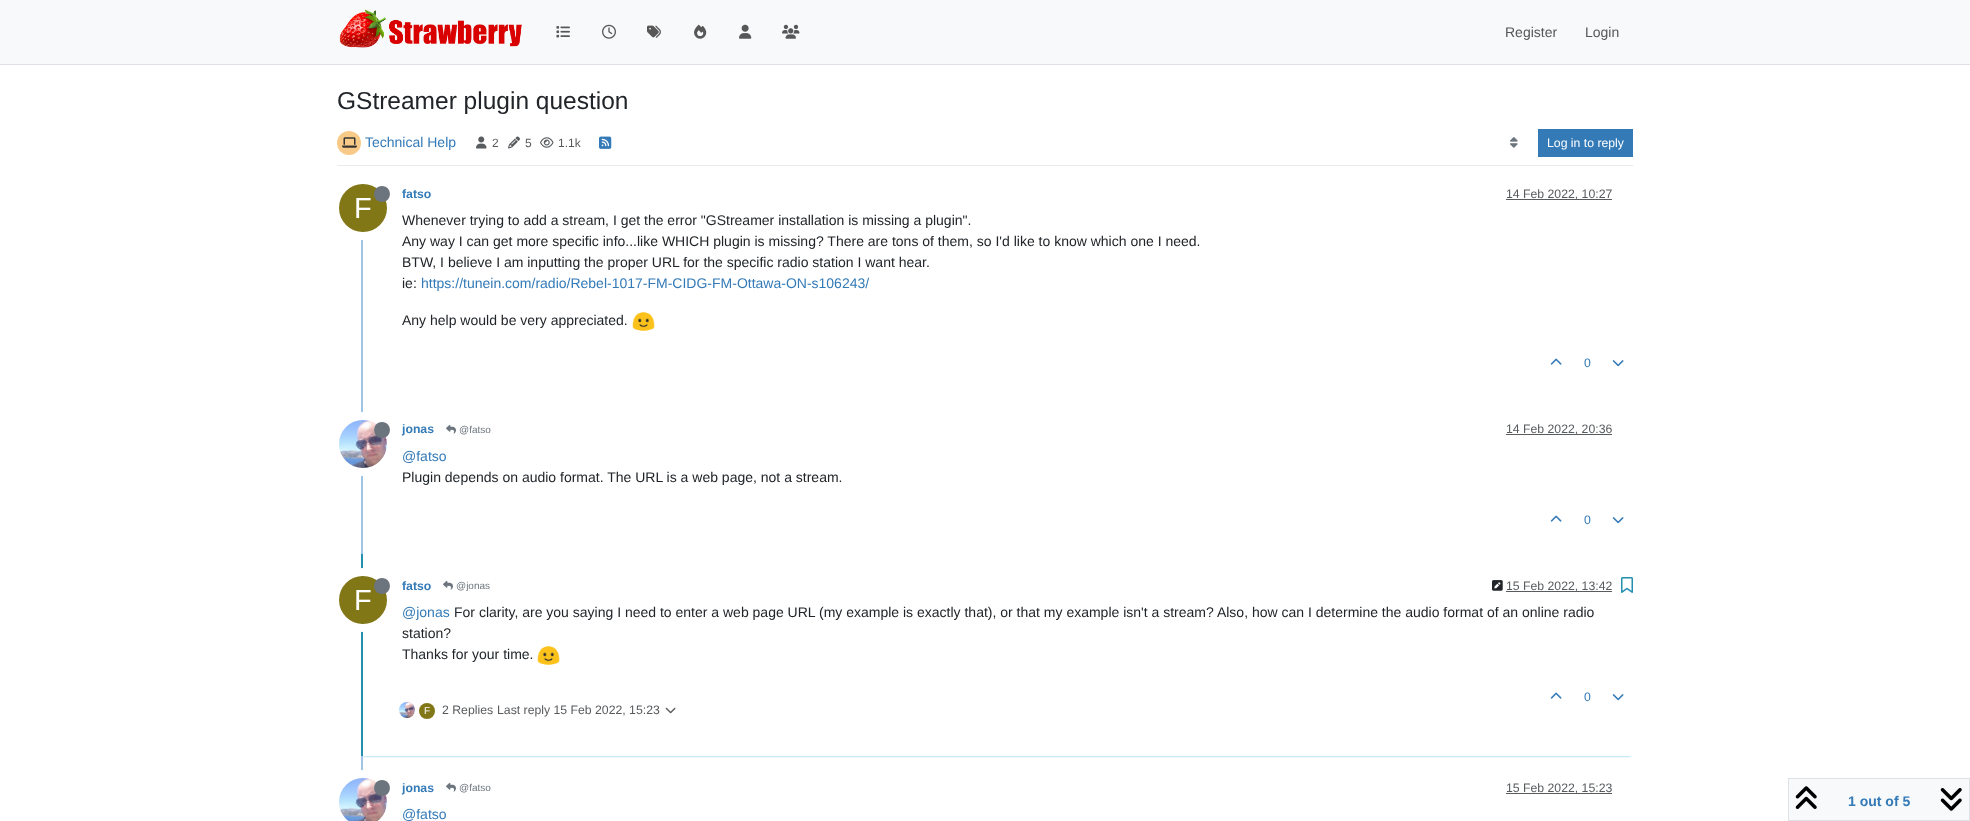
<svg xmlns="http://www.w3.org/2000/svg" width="1970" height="821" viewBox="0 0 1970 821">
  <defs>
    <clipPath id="clip1"><rect x="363" y="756" width="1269" height="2"/></clipPath>
  </defs>
  <rect width="100%" height="100%" fill="rgb(255,255,255)"/>
  <rect x="0" y="0" width="1970" height="64" fill="rgb(248,249,250)"/>
  <rect x="0" y="64" width="1970" height="1" fill="rgb(222,226,230)"/>
  <image x="339" y="9" width="183" height="39" href="pic1.png"/>
  <image x="556" y="26" width="14" height="12" href="pic2.png"/>
  <image x="602" y="24" width="14" height="15" href="pic3.png"/>
  <image x="647" y="25" width="14" height="13" href="pic4.png"/>
  <image x="694" y="24" width="13" height="15" href="pic5.png"/>
  <image x="739" y="24" width="13" height="15" href="pic6.png"/>
  <image x="782" y="24" width="18" height="15" href="pic7.png"/>
  <g font-family="Liberation Sans" font-size="14" fill="rgb(87,87,88)">
    <text x="1505" y="37">Register</text>
    <text x="1585" y="37">Login</text>
  </g>
  <text x="337" y="109" font-family="Liberation Sans" font-size="24.5" fill="rgb(33,37,41)">GStreamer plugin question</text>
  <rect x="337" y="165" width="1296" height="1" fill="rgb(233,236,239)"/>
  <circle cx="349" cy="143" r="12" fill="rgb(247,202,136)"/>
  <image x="342" y="137" width="15" height="11" href="pic8.png"/>
  <text x="365" y="147" font-family="Liberation Sans" font-size="14" fill="rgb(51,122,183)">Technical Help</text>
  <image x="476" y="136" width="11" height="13" href="pic9.png"/>
  <text x="492" y="147" font-family="Liberation Sans" font-size="12" fill="rgb(88,91,94)">2</text>
  <image x="508" y="136" width="12" height="13" href="pic10.png"/>
  <text x="525" y="147" font-family="Liberation Sans" font-size="12" fill="rgb(88,91,94)">5</text>
  <image x="540" y="137" width="14" height="11" href="pic11.png"/>
  <text x="558" y="147" font-family="Liberation Sans" font-size="12" fill="rgb(88,91,94)">1.1k</text>
  <image x="599" y="136" width="13" height="13" href="pic12.png"/>
  <image x="1510" y="137" width="8" height="11" href="pic13.png"/>
  <rect x="1538" y="129" width="95" height="28" fill="rgb(51,122,183)"/>
  <text x="1547" y="147" font-family="Liberation Sans" font-size="12.25" fill="rgb(255,255,255)">Log in to reply</text>
  <rect x="361" y="182" width="2" height="372" fill="rgb(160,196,228)"/>
  <text x="402" y="198" font-family="Liberation Sans" font-size="12.25" font-weight="bold" fill="rgb(51,122,183)">fatso</text>
  <rect x="1506" y="199" width="106" height="1" fill="rgb(89,92,95)"/>
  <text x="1506" y="198" font-family="Liberation Sans" font-size="12.25" fill="rgb(88,91,94)">14 Feb 2022, 10:27</text>
  <circle cx="363" cy="208" r="28" fill="none" stroke="rgb(255,255,255)" stroke-width="8"/>
  <circle cx="363" cy="208" r="24" fill="rgb(130,119,23)"/>
  <path d="M382 202C392.5 202 392.5 186 382 186C371.5 186 371.5 202 382 202Z" fill="rgb(108,117,125)"/>
  <text x="354" y="218" font-family="Liberation Sans" font-size="29" fill="rgb(255,255,255)">F</text>
  <g font-family="Liberation Sans" font-size="14" fill="rgb(33,37,41)">
    <text>
      <tspan x="402" y="225">Whenever trying to add a stream, I get the error "GStreamer installation is missing a plugin".</tspan>
      <tspan x="402" y="246">Any way I can get more specific info...like WHICH plugin is missing? There are tons of them, so I'd like to know which one I need.</tspan>
      <tspan x="402" y="267">BTW, I believe I am inputting the proper URL for the specific radio station I want hear.</tspan>
      <tspan x="402" y="288">ie:</tspan>
    </text>
  </g>
  <text x="421" y="288" font-family="Liberation Sans" font-size="14" fill="rgb(51,122,183)">https://tunein.com/radio/Rebel-1017-FM-CIDG-FM-Ottawa-ON-s106243/</text>
  <text x="402" y="325" font-family="Liberation Sans" font-size="14" fill="rgb(33,37,41)">Any help would be very appreciated.</text>
  <image x="632" y="312" width="23" height="19" href="pic14.png"/>
  <image x="1550" y="358" width="12" height="7" href="pic15.png"/>
  <text x="1584" y="367" font-family="Liberation Sans" font-size="12.25" fill="rgb(51,122,183)">0</text>
  <image x="1612" y="360" width="12" height="7" href="pic16.png"/>
  <circle cx="363" cy="444" r="28" fill="none" stroke="rgb(255,255,255)" stroke-width="8"/>
  <image x="339" y="420" width="48" height="48" href="pic17.png"/>
  <path d="M382 438C392.5 438 392.5 422 382 422C371.5 422 371.5 438 382 438Z" fill="rgb(108,117,125)"/>
  <text x="402" y="433" font-family="Liberation Sans" font-size="12.25" font-weight="bold" fill="rgb(51,122,183)">jonas</text>
  <image x="446" y="424" width="10" height="10" href="pic18.png"/>
  <text x="459" y="433" font-family="Liberation Sans" font-size="10" fill="rgb(108,117,125)">@fatso</text>
  <rect x="1506" y="434" width="106" height="1" fill="rgb(89,92,95)"/>
  <text x="1506" y="433" font-family="Liberation Sans" font-size="12.25" fill="rgb(88,91,94)">14 Feb 2022, 20:36</text>
  <text x="402" y="461" font-family="Liberation Sans" font-size="14" fill="rgb(51,122,183)">@fatso</text>
  <text x="402" y="482" font-family="Liberation Sans" font-size="14" fill="rgb(33,37,41)">Plugin depends on audio format. The URL is a web page, not a stream.</text>
  <image x="1550" y="515" width="12" height="7" href="pic15.png"/>
  <text x="1584" y="524" font-family="Liberation Sans" font-size="12.25" fill="rgb(51,122,183)">0</text>
  <image x="1612" y="517" width="12" height="7" href="pic16.png"/>
  <g clip-path="url(#clip1)">
    <rect x="363" y="558" width="1268" height="198" fill="rgb(91,192,222)" filter="blur(1px)"/>
  </g>
  <rect x="361" y="554" width="2" height="202" fill="rgb(35,144,176)"/>
  <text x="402" y="590" font-family="Liberation Sans" font-size="12.25" font-weight="bold" fill="rgb(51,122,183)">fatso</text>
  <image x="443" y="580" width="10" height="10" href="pic18.png"/>
  <text x="456" y="589" font-family="Liberation Sans" font-size="10" fill="rgb(108,117,125)">@jonas</text>
  <image x="1492" y="580" width="11" height="11" href="pic19.png"/>
  <rect x="1506" y="591" width="106" height="1" fill="rgb(89,92,95)"/>
  <text x="1506" y="590" font-family="Liberation Sans" font-size="12.25" fill="rgb(88,91,94)">15 Feb 2022, 13:42</text>
  <image x="1621" y="577" width="12" height="16" href="pic20.png"/>
  <circle cx="363" cy="600" r="28" fill="none" stroke="rgb(255,255,255)" stroke-width="8"/>
  <circle cx="363" cy="600" r="24" fill="rgb(130,119,23)"/>
  <path d="M382 594C392.5 594 392.5 578 382 578C371.5 578 371.5 594 382 594Z" fill="rgb(108,117,125)"/>
  <text x="354" y="610" font-family="Liberation Sans" font-size="29" fill="rgb(255,255,255)">F</text>
  <text x="402" y="617" font-family="Liberation Sans" font-size="14" fill="rgb(51,122,183)">@jonas</text>
  <g font-family="Liberation Sans" font-size="14" fill="rgb(33,37,41)">
    <text x="454" y="617">For clarity, are you saying I need to enter a web page URL (my example is exactly that), or that my example isn't a stream? Also, how can I determine the audio format of an online radio</text>
    <text>
      <tspan x="402" y="638">station?</tspan>
      <tspan x="402" y="659">Thanks for your time.</tspan>
    </text>
  </g>
  <image x="537" y="646" width="23" height="19" href="pic14.png"/>
  <image x="1550" y="692" width="12" height="7" href="pic15.png"/>
  <text x="1584" y="701" font-family="Liberation Sans" font-size="12.25" fill="rgb(51,122,183)">0</text>
  <image x="1612" y="694" width="12" height="7" href="pic16.png"/>
  <image x="399" y="702" width="16" height="16" href="pic21.png"/>
  <circle cx="427" cy="711" r="8" fill="rgb(130,119,23)"/>
  <text x="424" y="714" font-family="Liberation Sans" font-size="10" fill="rgb(255,255,255)">F</text>
  <g font-family="Liberation Sans" font-size="12.25" fill="rgb(88,91,94)">
    <text x="442" y="714">2 Replies</text>
    <text x="497" y="714">Last reply 15 Feb 2022, 15:23</text>
  </g>
  <image x="665" y="707" width="11" height="7" href="pic22.png"/>
  <rect x="361" y="756" width="2" height="23" fill="rgb(160,196,228)"/>
  <circle cx="363" cy="802" r="28" fill="none" stroke="rgb(255,255,255)" stroke-width="8"/>
  <image x="339" y="778" width="48" height="43" href="pic23.png"/>
  <path d="M382 796C392.5 796 392.5 780 382 780C371.5 780 371.5 796 382 796Z" fill="rgb(108,117,125)"/>
  <text x="402" y="792" font-family="Liberation Sans" font-size="12.25" font-weight="bold" fill="rgb(51,122,183)">jonas</text>
  <image x="446" y="782" width="10" height="10" href="pic18.png"/>
  <text x="459" y="791" font-family="Liberation Sans" font-size="10" fill="rgb(108,117,125)">@fatso</text>
  <rect x="1506" y="793" width="106" height="1" fill="rgb(89,92,95)"/>
  <text x="1506" y="792" font-family="Liberation Sans" font-size="12.25" fill="rgb(88,91,94)">15 Feb 2022, 15:23</text>
  <text x="402" y="819" font-family="Liberation Sans" font-size="14" fill="rgb(51,122,183)">@fatso</text>
  <rect x="1788.5" y="778.5" width="181" height="42" fill="rgb(248,249,250)" stroke="rgb(222,226,230)"/>
  <image x="1795" y="786" width="22" height="23" href="pic24.png"/>
  <text x="1848" y="806" font-family="Liberation Sans" font-size="14" font-weight="bold" fill="rgb(51,122,183)">1 out of 5</text>
  <image x="1940" y="788" width="22" height="23" href="pic25.png"/>
</svg>
